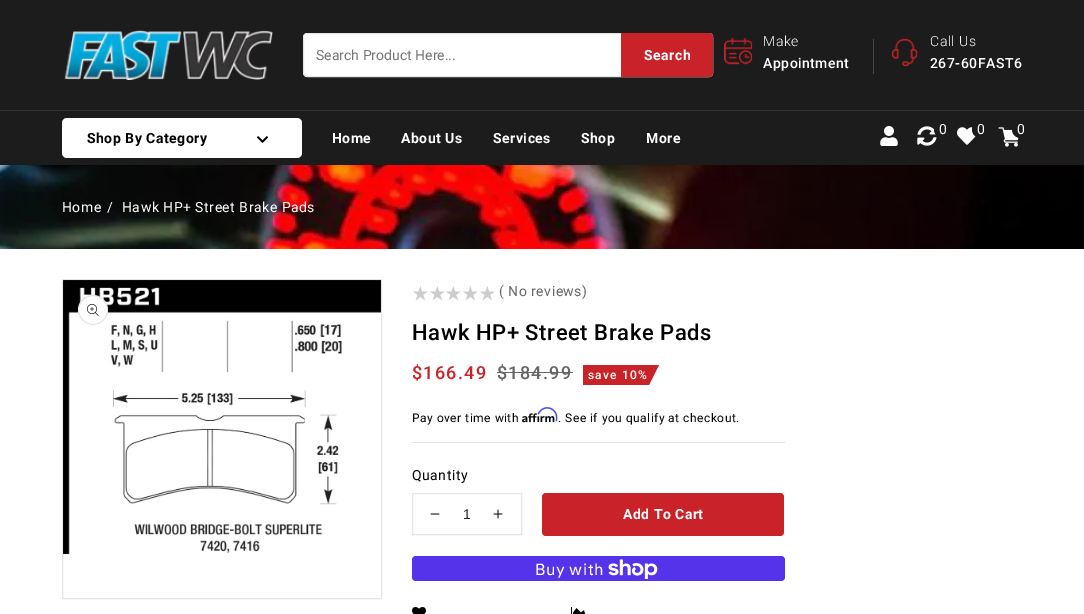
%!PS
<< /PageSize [1084 614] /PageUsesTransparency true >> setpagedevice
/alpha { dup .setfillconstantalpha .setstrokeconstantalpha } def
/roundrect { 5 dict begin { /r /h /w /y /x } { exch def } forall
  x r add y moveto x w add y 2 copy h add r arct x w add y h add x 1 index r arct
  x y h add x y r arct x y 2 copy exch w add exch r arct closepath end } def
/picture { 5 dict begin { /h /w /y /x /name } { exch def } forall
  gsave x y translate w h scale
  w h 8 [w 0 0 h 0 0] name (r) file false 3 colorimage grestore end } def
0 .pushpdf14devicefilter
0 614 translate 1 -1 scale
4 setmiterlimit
1 setgray
0 0 1084 614 rectfill
0.11 setgray
0 0 1084 110 rectfill
(img1.rgb) 64 30 209 50 picture
1 setgray
303.5 33.5 409 43 3.5 roundrect gsave fill grestore
0.898 setgray
stroke
/Roboto-Regular [14 0 0 -14 0 0] selectfont
0.459 setgray
316 60 moveto (Search Product Here...) show
0.788 0.133 0.161 setrgbcolor
newpath 621 33 moveto 709 33 lineto 711 33 713 35 713 37 curveto 713 73 lineto 713 75 711 77 709 77 curveto 621 77 lineto closepath fill
/Roboto-Bold [14 0 0 -14 0 0] selectfont
1 setgray
644 60 moveto 0.5 0 (Search) ashow
(img2.rgb) 724 38 29 27 picture
/Roboto-Light [14 0 0 -14 0 0] selectfont
763 46 moveto 0.5 0 (Make) ashow
/Roboto-Medium [14 0 0 -14 0 0] selectfont
763 68 moveto 0.5 0 (Appointment) ashow
0.286 0.282 0.286 setrgbcolor
873 39 1 35 rectfill
(img3.rgb) 891 38 27 29 picture
/Roboto-Light [14 0 0 -14 0 0] selectfont
1 setgray
930 46 moveto 0.5 0 (Call Us) ashow
/Roboto-Medium [14 0 0 -14 0 0] selectfont
930 68 moveto 0.5 0 (267-60FAST6) ashow
0.11 setgray
0 111 1084 54 rectfill
0.188 setgray
0 110 1084 1 rectfill
(img4.rgb) 880 126 18 20 picture
(img5.rgb) 917 126 20 20 picture
0.11 setgray
934 121 18 17 8.5 roundrect fill
/Roboto-Regular [14 0 0 -14 0 0] selectfont
1 setgray
939 134 moveto 0.5 0 (0) ashow
(img6.rgb) 957 127 19 18 picture
0.11 setgray
972 121 18 17 8.5 roundrect fill
1 setgray
977 134 moveto 0.5 0 (0) ashow
(img7.rgb) 998 127 21 20 picture
0.11 setgray
1012 121 18 17 8.5 roundrect fill
1 setgray
1017 134 moveto 0.5 0 (0) ashow
62 118 240 40 5 roundrect fill
/Roboto-Bold [14 0 0 -14 0 0] selectfont
0 setgray
87 143 moveto 0.5 0 (Shop By Category) ashow
(img8.rgb) 257 136 11 7 picture
1 setgray
332 143 moveto 0.5 0 (Home) ashow
401 143 moveto 0.5 0 (About Us) ashow
493 143 moveto 0.5 0 (Services) ashow
581 143 moveto 0.5 0 (Shop) ashow
646 143 moveto 0.5 0 (More) ashow
(img9.rgb) 0 165 1084 84 picture
/Roboto-Regular [14 0 0 -14 0 0] selectfont
62 212 moveto 0.5 0 (Home) ashow
107 212 moveto 0.5 0 (/) ashow
122 212 moveto 0.5 0 (Hawk HP+ Street Brake Pads) ashow
0.898 setgray
62.5 279.5 319 319 rectstroke
(img10.rgb) 63 280 318 274 picture
1 setgray
newpath 93 310 15 0 360 arc closepath fill
0.1 alpha
0 setgray
newpath 93 310 14.5 0 360 arc closepath stroke
1 alpha
(img11.rgb) 87 304 12 12 picture
/DejaVuSans-Bold [18 0 0 -18 0 0] selectfont
0.8 setgray
412 300 moveto 0.5 0 (★★★★★) ashow
/Roboto-Regular [14 0 0 -14 0 0] selectfont
0.4 setgray
499 296 moveto 0.5 0 (\( No reviews\)) ashow
/Roboto-Medium [22 0 0 -22 0 0] selectfont
0 setgray
412 340 moveto 0.6 0 (Hawk HP+ Street Brake Pads) ashow
0.898 setgray
412 442 373 1 rectfill
/Roboto-Medium [18 0 0 -18 0 0] selectfont
0.788 0.133 0.161 setrgbcolor
412 379 moveto 1.25 0 ($166.49) ashow
0.4 setgray
497 379 moveto 1.25 0 ($184.99) ashow
497 372 76 1 rectfill
0.788 0.133 0.161 setrgbcolor
583 365 66 20 rectfill
/Roboto-Medium [12 0 0 -12 0 0] selectfont
1 setgray
588 379 moveto 1.25 0 (save 10%) ashow
0.788 0.133 0.161 setrgbcolor
newpath 649 385 moveto 649 365 lineto 659 365 lineto closepath fill
/Roboto-Regular [12 0 0 -12 0 0] selectfont
0 setgray
412 422 moveto 0.5 0 (Pay over time with) ashow
(img13.rgb) 522 413 33 10 picture
(img12.rgb) 537 407 21 15 picture
558 422 moveto 0.5 0 (. See if you qualify at checkout.) ashow
/Roboto-Regular [14 0 0 -14 0 0] selectfont
412 480 moveto 0.5 0 (Quantity) ashow
0.898 setgray
412.5 493.5 109 41 rectstroke
(img14.rgb) 430 513 10 2 picture
/LiberationSans-Regular [14 0 0 -14 0 0] selectfont
0.149 setgray
463 519 moveto (1) show
(img15.rgb) 493 509 10 10 picture
0.788 0.133 0.161 setrgbcolor
542 493 242 43 4 roundrect fill
/Roboto-Bold [14 0 0 -14 0 0] selectfont
1 setgray
623 519 moveto 0.5 0 (Add To Cart) ashow
0.329 0.2 0.922 setrgbcolor
412 556 373 25 4 roundrect fill
/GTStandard-Regular [16 0 0 -16 0 0] selectfont
1 setgray
535 575 moveto 0.5 0 (Buy with) ashow
(img16.rgb) 608 559 50 20 picture
(img17.rgb) 412 607 14 7 picture
(img18.rgb) 571 607 15 7 picture
.poppdf14devicefilter showpage
